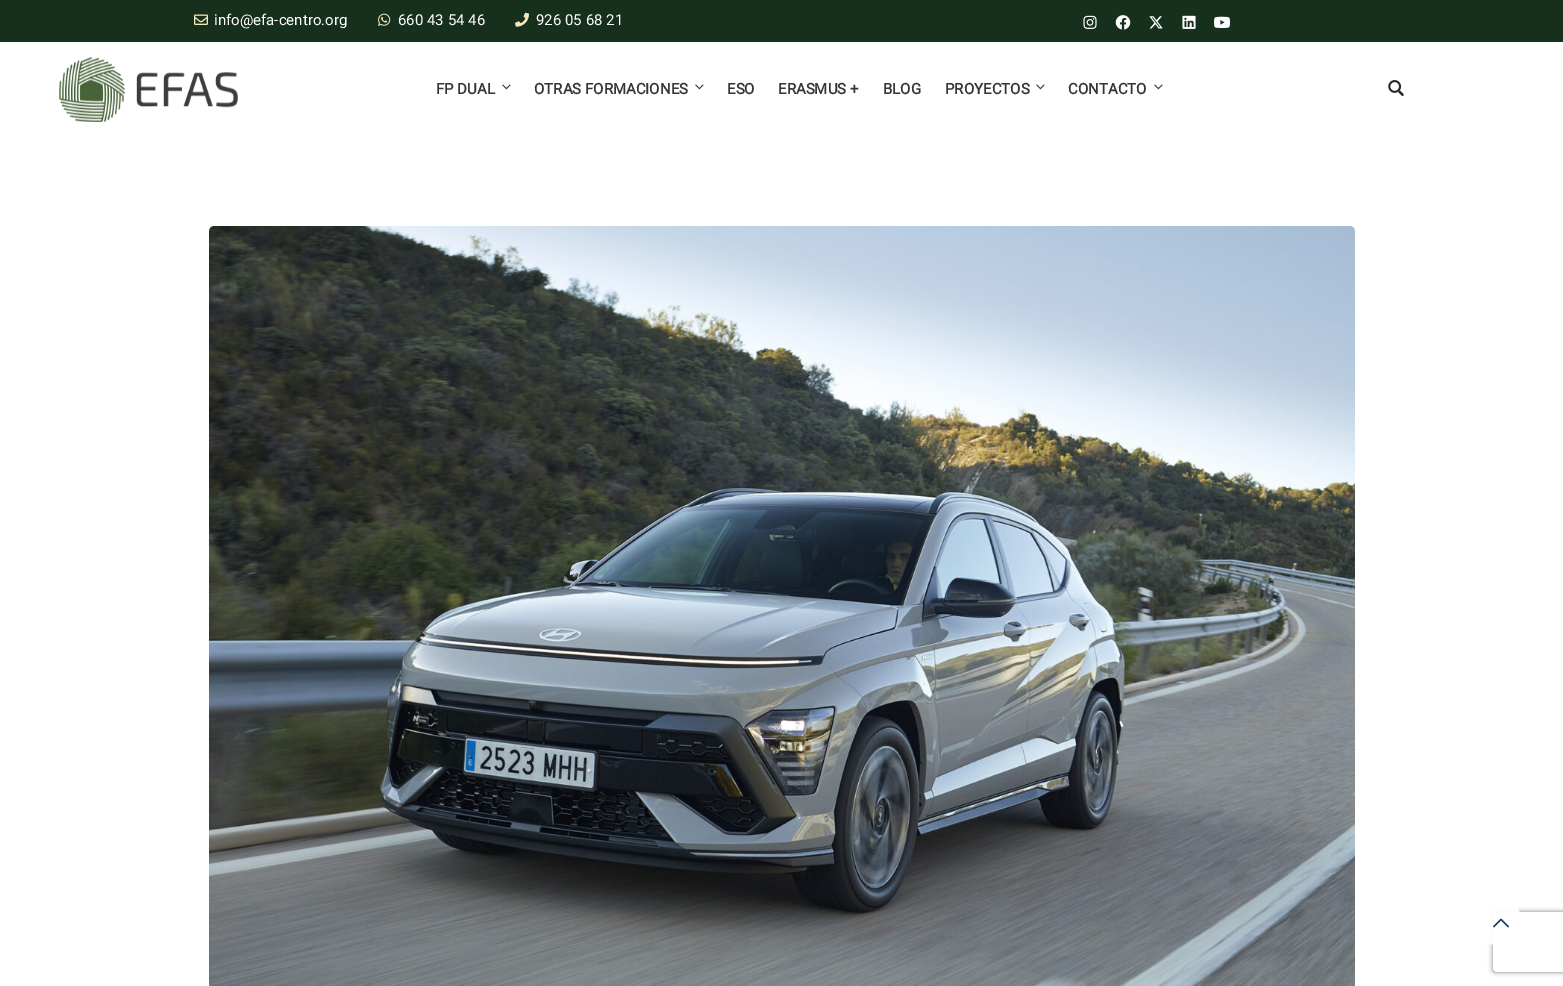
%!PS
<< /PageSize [1563 986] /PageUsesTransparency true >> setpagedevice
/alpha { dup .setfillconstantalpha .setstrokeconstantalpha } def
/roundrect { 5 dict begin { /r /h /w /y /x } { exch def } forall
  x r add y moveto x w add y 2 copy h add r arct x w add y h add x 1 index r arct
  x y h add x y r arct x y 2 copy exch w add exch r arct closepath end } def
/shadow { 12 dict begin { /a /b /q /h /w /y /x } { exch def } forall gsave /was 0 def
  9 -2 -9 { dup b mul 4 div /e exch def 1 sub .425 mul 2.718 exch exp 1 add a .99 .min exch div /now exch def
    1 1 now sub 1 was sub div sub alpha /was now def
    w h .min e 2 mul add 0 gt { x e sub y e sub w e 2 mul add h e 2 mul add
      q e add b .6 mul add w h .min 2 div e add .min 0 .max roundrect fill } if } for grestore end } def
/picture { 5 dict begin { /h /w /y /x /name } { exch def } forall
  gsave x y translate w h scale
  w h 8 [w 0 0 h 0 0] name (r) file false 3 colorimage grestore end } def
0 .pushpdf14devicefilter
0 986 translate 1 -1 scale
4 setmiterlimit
1 setgray
0 0 1563 986 rectfill
0.09 0.188 0.114 setrgbcolor
0 0 1563 42 rectfill
(img1.rgb) 194 14 14 11 picture
/Roboto-Regular [15 0 0 -15 0 0] selectfont
1 setgray
214 25 moveto (info@efa-centro.org) show
(img2.rgb) 378 13 13 13 picture
398 25 moveto (660 43 54 46) show
(img3.rgb) 515 12 14 15 picture
536 25 moveto (926 05 68 21) show
(img4.rgb) 1083 15 14 14 picture
(img5.rgb) 1115 15 16 15 picture
(img6.rgb) 1149 16 14 13 picture
(img7.rgb) 1182 15 14 14 picture
(img8.rgb) 1214 16 16 12 picture
(img9.rgb) 59 56 179 66 picture
/Roboto-Bold [15 0 0 -15 0 0] selectfont
0.204 0.216 0.227 setrgbcolor
436 94 moveto (FP DUAL) show
(img10.rgb) 502 84 9 6 picture
534 94 moveto (OTRAS FORMACIONES) show
(img10.rgb) 695 84 9 6 picture
727 94 moveto (ESO) show
778 94 moveto (ERASMUS +) show
883 94 moveto (BLOG) show
945 94 moveto (PROYECTOS) show
(img10.rgb) 1036 84 9 6 picture
1068 94 moveto (CONTACTO) show
(img10.rgb) 1154 84 9 6 picture
(img11.rgb) 1388 80 16 16 picture
(img12.rgb) 209 226 1146 760 picture
gsave
newpath 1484 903 moveto 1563 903 lineto 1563 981 lineto 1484 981 lineto closepath 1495 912 moveto 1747 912 lineto 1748 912 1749 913 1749 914 curveto 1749 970 lineto 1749 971 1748 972 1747 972 curveto 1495 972 lineto 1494 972 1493 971 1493 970 curveto 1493 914 lineto 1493 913 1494 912 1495 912 curveto closepath eoclip newpath
0.502 setgray
1493 912 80 60 2 2.5 1 shadow
grestore
0.95 alpha
1 setgray
newpath 1500.5 923.5 22.5 0 360 arc closepath fill
1 alpha
(img13.rgb) 1493 918 16 10 picture
.poppdf14devicefilter showpage
